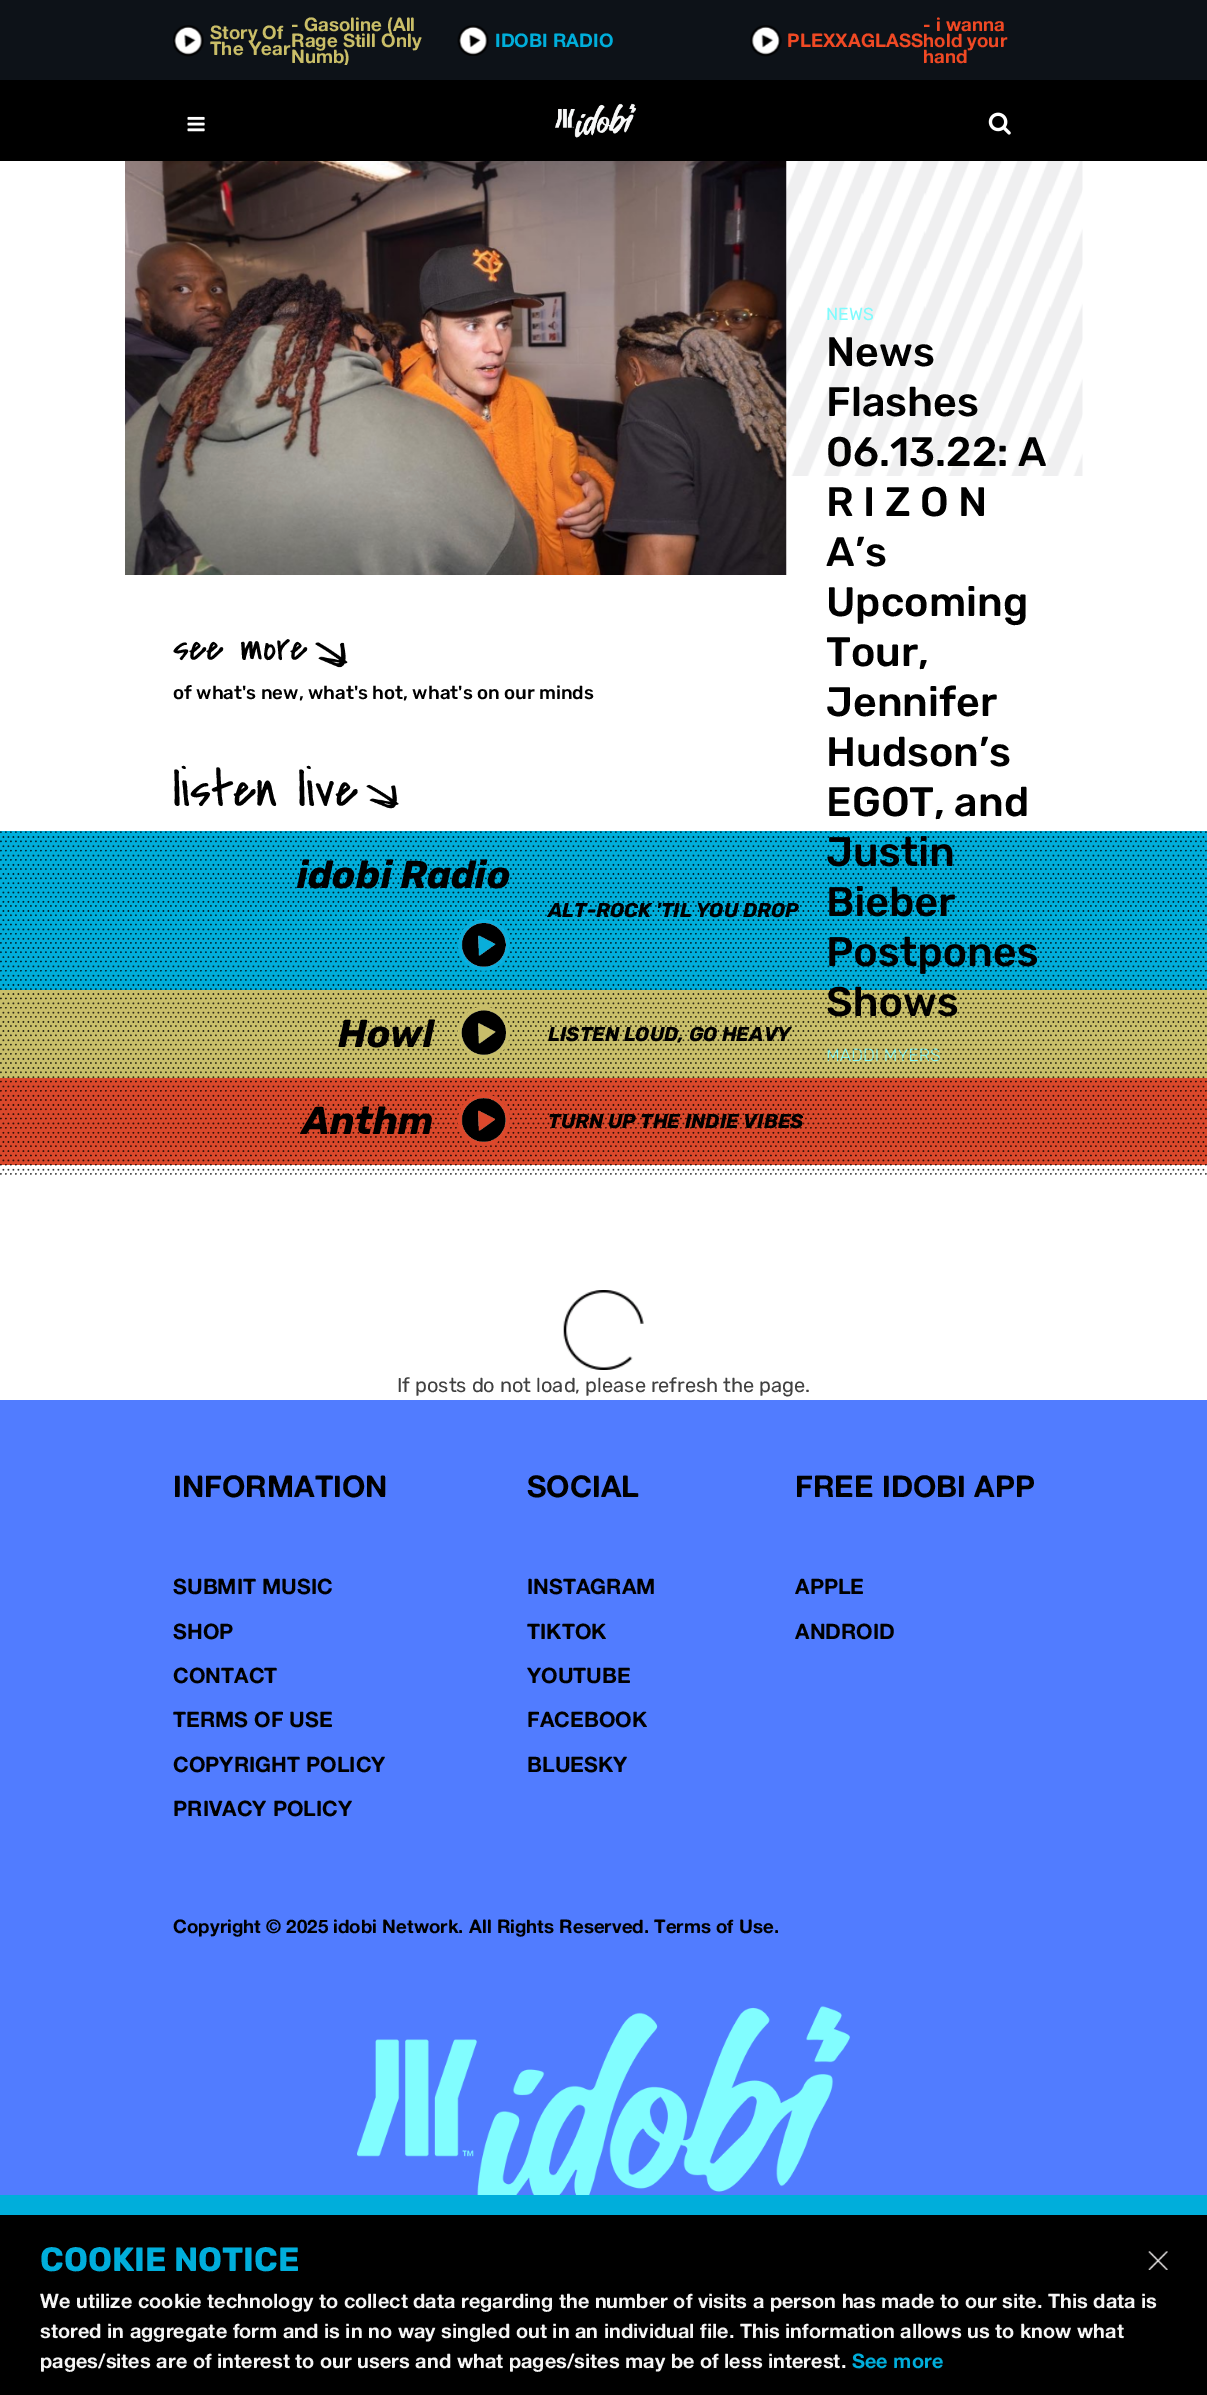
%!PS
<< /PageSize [1207 2395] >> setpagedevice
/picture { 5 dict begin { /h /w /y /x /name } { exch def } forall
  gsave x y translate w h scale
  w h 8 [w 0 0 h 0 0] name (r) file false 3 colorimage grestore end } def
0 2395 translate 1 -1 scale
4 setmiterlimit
1 setgray
0 0 1207 2395 rectfill
0 setgray
0 80 1207 81 rectfill
0.051 0.071 0.094 setrgbcolor
0 0 1207 80 rectfill
(img1.rgb) 173 25 31 32 picture
/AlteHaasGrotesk-Bold [18.75 0 0 -18.75 0 0] selectfont
0.792 0.745 0.408 setrgbcolor
210 39 moveto (Story Of) show
210 55 moveto (The Year) show
291 31 moveto (- Gasoline \(All) show
291 47 moveto (Rage Still Only) show
gsave
173 16 285 49 rectclip
291 63 moveto (Numb\)) show
grestore
(img2.rgb) 457 25 32 31 picture
0 0.682 0.859 setrgbcolor
495 47 moveto (IDOBI RADIO) show
(img3.rgb) 750 25 32 32 picture
0.941 0.286 0.141 setrgbcolor
923 31 moveto (- i wanna) show
787 47 moveto (PLEXXAGLASShold your) show
923 63 moveto (hand) show
(img4.rgb) 187 116 18 16 picture
(img5.rgb) 555 103 82 35 picture
(img6.rgb) 988 112 23 23 picture
/CoveredByYourGrace-Regular [40 0 0 -40 0 0] selectfont
0 setgray
173 660 moveto (see more) show
(img7.rgb) 315 642 33 26 picture
/Rubik-Medium [18.75 0 0 -18.75 0 0] selectfont
173 699 moveto (of what's new, what's hot, what's on our minds) show
(img9.rgb) 786 161 297 315 picture
(img8.rgb) 125 161 662 414 picture
/Rubik-Regular [17.5 0 0 -17.5 0 0] selectfont
0.506 0.984 0.992 setrgbcolor
826 320 moveto (NEWS) show
/Rubik-Medium [41.25 0 0 -41.25 0 0] selectfont
0 setgray
826 366 moveto (News) show
826 416 moveto (Flashes) show
826 466 moveto (06.13.22: A) show
826 516 moveto (R I Z O N) show
826 566 moveto (A’s) show
826 616 moveto (Upcoming) show
826 666 moveto (Tour,) show
826 716 moveto (Jennifer) show
826 766 moveto (Hudson’s) show
826 816 moveto (EGOT, and) show
0 0.682 0.859 setrgbcolor
0 831 1207 159 rectfill
0 setgray
826 866 moveto (Justin) show
826 916 moveto (Bieber) show
826 966 moveto (Postpones) show
0.788 0.749 0.416 setrgbcolor
0 990 1207 88 rectfill
0 setgray
826 1016 moveto (Shows) show
/Rubik-Light [17.5 0 0 -17.5 0 0] selectfont
0.506 0.984 0.992 setrgbcolor
826 1061 moveto (MADDI MYERS) show
/CoveredByYourGrace-Regular [52.5 0 0 -52.5 0 0] selectfont
0 setgray
173 806 moveto (listen live) show
(img10.rgb) 366 784 33 25 picture
0.855 0.282 0.169 setrgbcolor
0 1078 1207 87 rectfill
(img11.rgb) 0 831 1207 344 picture
/Rubik-BoldItalic [38.75 0 0 -38.75 0 0] selectfont
0 setgray
297 888 moveto (idobi Radio) show
(img12.rgb) 458 919 52 52 picture
/Rubik-BoldItalic [20 0 0 -20 0 0] selectfont
548 917 moveto (ALT-ROCK 'TIL YOU DROP) show
/Rubik-BoldItalic [38.75 0 0 -38.75 0 0] selectfont
338 1047 moveto (Howl) show
(img13.rgb) 457 1007 53 52 picture
/Rubik-BoldItalic [20 0 0 -20 0 0] selectfont
548 1041 moveto (LISTEN LOUD, GO HEAVY) show
/Rubik-BoldItalic [38.75 0 0 -38.75 0 0] selectfont
302 1134 moveto (Anthm) show
(img14.rgb) 458 1094 52 53 picture
/Rubik-BoldItalic [20 0 0 -20 0 0] selectfont
548 1128 moveto (TURN UP THE INDIE VIBES) show
(img15.rgb) 563 1290 81 80 picture
/Rubik-Regular [20 0 0 -20 0 0] selectfont
0.251 setgray
397 1392 moveto (If posts do not load, please refresh the page.) show
0.318 0.486 1 setrgbcolor
0 1400 1207 795 rectfill
/AlteHaasGrotesk-Bold [30 0 0 -30 0 0] selectfont
0 setgray
173 1497 moveto (INFORMATION) show
/AlteHaasGrotesk-Bold [21.25 0 0 -21.25 0 0] selectfont
173 1594 moveto (SUBMIT MUSIC) show
173 1639 moveto (SHOP) show
173 1683 moveto (CONTACT) show
173 1727 moveto (TERMS OF USE) show
173 1772 moveto (COPYRIGHT POLICY) show
173 1816 moveto (PRIVACY POLICY) show
/AlteHaasGrotesk-Bold [30 0 0 -30 0 0] selectfont
527 1497 moveto (SOCIAL) show
/AlteHaasGrotesk-Bold [21.25 0 0 -21.25 0 0] selectfont
527 1594 moveto (INSTAGRAM) show
527 1639 moveto (TIKTOK) show
527 1683 moveto (YOUTUBE) show
527 1727 moveto (FACEBOOK) show
527 1772 moveto (BLUESKY) show
/AlteHaasGrotesk-Bold [30 0 0 -30 0 0] selectfont
795 1497 moveto (FREE IDOBI APP) show
/AlteHaasGrotesk-Bold [21.25 0 0 -21.25 0 0] selectfont
795 1594 moveto (APPLE) show
795 1639 moveto (ANDROID) show
/AlteHaasGrotesk-Bold [18.75 0 0 -18.75 0 0] selectfont
173 1933 moveto (Copyright © 2025 idobi Network. All Rights Reserved. Terms of Use.) show
(img16.rgb) 357 2006 493 189 picture
0 2215 1207 180 rectfill
0 0.682 0.859 setrgbcolor
0 2195 1207 20 rectfill
/Rubik-Bold [33.75 0 0 -33.75 0 0] selectfont
40 2271 moveto (COOKIE NOTICE) show
(img17.rgb) 1148 2251 20 19 picture
/AlteHaasGrotesk-Bold [20 0 0 -20 0 0] selectfont
0.961 setgray
40 2308 moveto (We utilize cookie technology to collect data regarding the number of visits a person has made to our site. This data is) show
40 2338 moveto (stored in aggregate form and is in no way singled out in an individual file. This information allows us to know what) show
40 2368 moveto (pages/sites are of interest to our users and what pages/sites may be of less interest.) show
0 0.682 0.859 setrgbcolor
852 2368 moveto (See more) show
showpage
